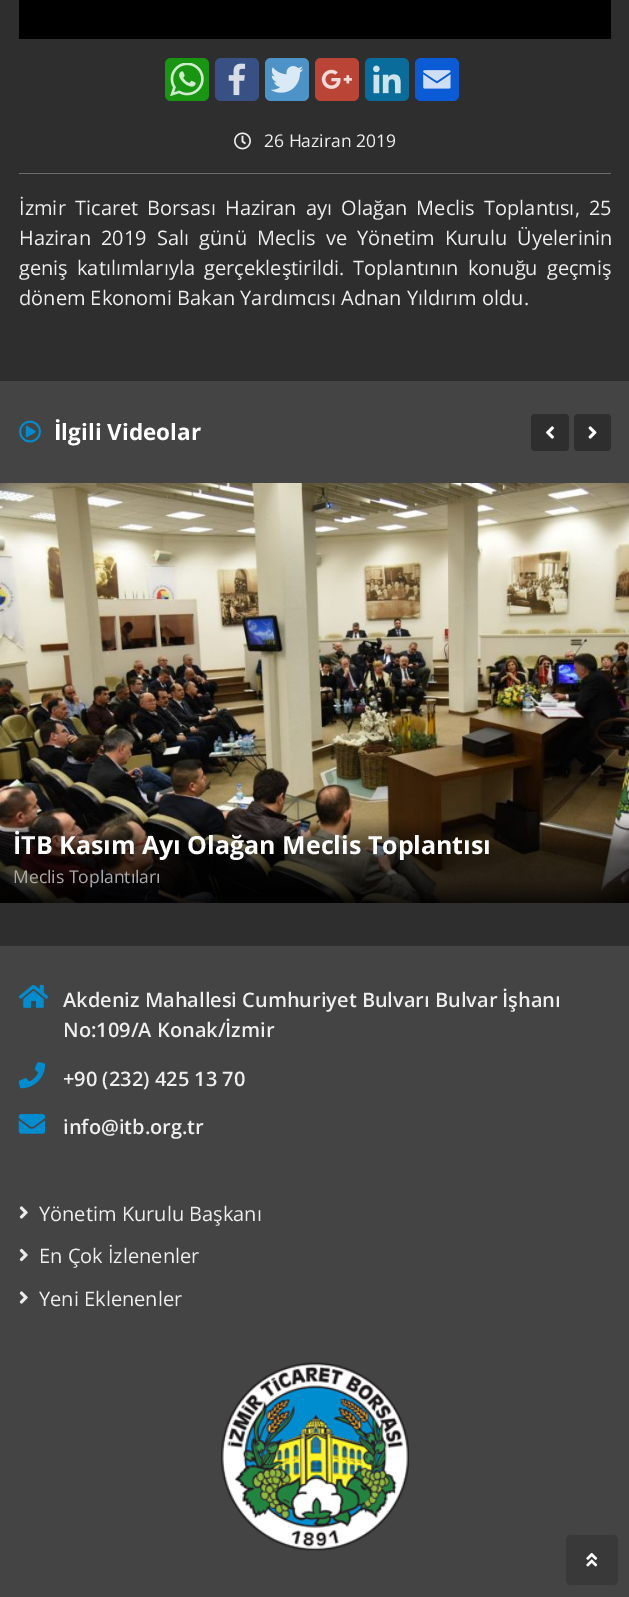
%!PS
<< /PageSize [629 1597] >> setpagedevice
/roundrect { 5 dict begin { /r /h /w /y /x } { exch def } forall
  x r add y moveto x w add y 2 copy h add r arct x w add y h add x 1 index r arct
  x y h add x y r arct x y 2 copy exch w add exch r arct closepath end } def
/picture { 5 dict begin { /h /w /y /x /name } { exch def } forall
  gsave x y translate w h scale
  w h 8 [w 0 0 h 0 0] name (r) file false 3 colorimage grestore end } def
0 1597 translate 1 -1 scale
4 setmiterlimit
0.18 setgray
0 0 629 1597 rectfill
0 setgray
19 0 592 39 rectfill
0.424 setgray
19 173 592 1 rectfill
0.094 0.584 0.067 setrgbcolor
165 58 44 43 6 roundrect fill
(img1.rgb) 170 63 34 33 picture
0.22 0.314 0.514 setrgbcolor
215 58 44 43 6 roundrect fill
(img2.rgb) 228 63 18 33 picture
0.302 0.576 0.784 setrgbcolor
265 58 44 43 6 roundrect fill
(img3.rgb) 270 66 34 27 picture
0.729 0.271 0.216 setrgbcolor
315 58 44 43 6 roundrect fill
(img4.rgb) 321 69 31 20 picture
0.035 0.424 0.604 setrgbcolor
365 58 44 43 6 roundrect fill
(img5.rgb) 373 65 28 29 picture
0.039 0.357 0.835 setrgbcolor
415 58 44 43 6 roundrect fill
(img6.rgb) 423 70 28 19 picture
(img7.rgb) 234 132 17 18 picture
/OpenSans-Regular [17.5 0 0 -17.5 0 0] selectfont
0.937 setgray
264 147 moveto (26 Haziran 2019) show
/OpenSans-Regular [20 0 0 -20 0 0] selectfont
19 215 moveto 4 0 32 (İzmir Ticaret Borsası Haziran ayı Olağan Meclis Toplantısı, 25) widthshow
19 245 moveto 5 0 32 (Haziran 2019 Salı günü Meclis ve Yönetim Kurulu Üyelerinin) widthshow
19 275 moveto 3.75 0 32 (geniş katılımlarıyla gerçekleştirildi. Toplantının konuğu geçmiş) widthshow
19 305 moveto (dönem Ekonomi Bakan Yardımcısı Adnan Yıldırım oldu.) show
0.267 setgray
0 381 629 102 rectfill
(img8.rgb) 19 420 22 23 picture
/OpenSans-Bold [22.5 0 0 -22.5 0 0] selectfont
1 setgray
54 440 moveto (İlgili Videolar) show
0.18 setgray
531 414 38 37 4 roundrect fill
(img9.rgb) 546 426 8 13 picture
574 414 37 37 4 roundrect fill
(img10.rgb) 588 426 9 13 picture
(img11.rgb) 0 483 629 420 picture
/OpenSans-Bold [25 0 0 -25 0 0] selectfont
1 setgray
13 854 moveto (İTB Kasım Ayı Olağan Meclis Toplantısı) show
/OpenSans-Regular [17.5 0 0 -17.5 0 0] selectfont
0.667 setgray
13 883 moveto (Meclis Toplantıları) show
0.267 setgray
0 946 629 651 rectfill
(img12.rgb) 18 984 31 24 picture
/OpenSans-SemiBold [20 0 0 -20 0 0] selectfont
0.937 setgray
63 1007 moveto (Akdeniz Mahallesi Cumhuriyet Bulvarı Bulvar İşhanı) show
63 1037 moveto (No:109/A Konak/İzmir) show
(img13.rgb) 18 1062 27 27 picture
63 1086 moveto (+90 \(232\) 425 13 70) show
(img14.rgb) 18 1114 27 20 picture
63 1134 moveto (info@itb.org.tr) show
(img15.rgb) 19 1206 9 13 picture
/OpenSans-Regular [20 0 0 -20 0 0] selectfont
39 1221 moveto (Yönetim Kurulu Başkanı) show
(img16.rgb) 19 1248 9 14 picture
39 1263 moveto (En Çok İzlenenler) show
(img15.rgb) 19 1291 9 13 picture
39 1306 moveto (Yeni Eklenenler) show
(img17.rgb) 221 1362 188 189 picture
0.224 setgray
566 1535 52 50 5 roundrect fill
(img18.rgb) 586 1552 12 15 picture
showpage
